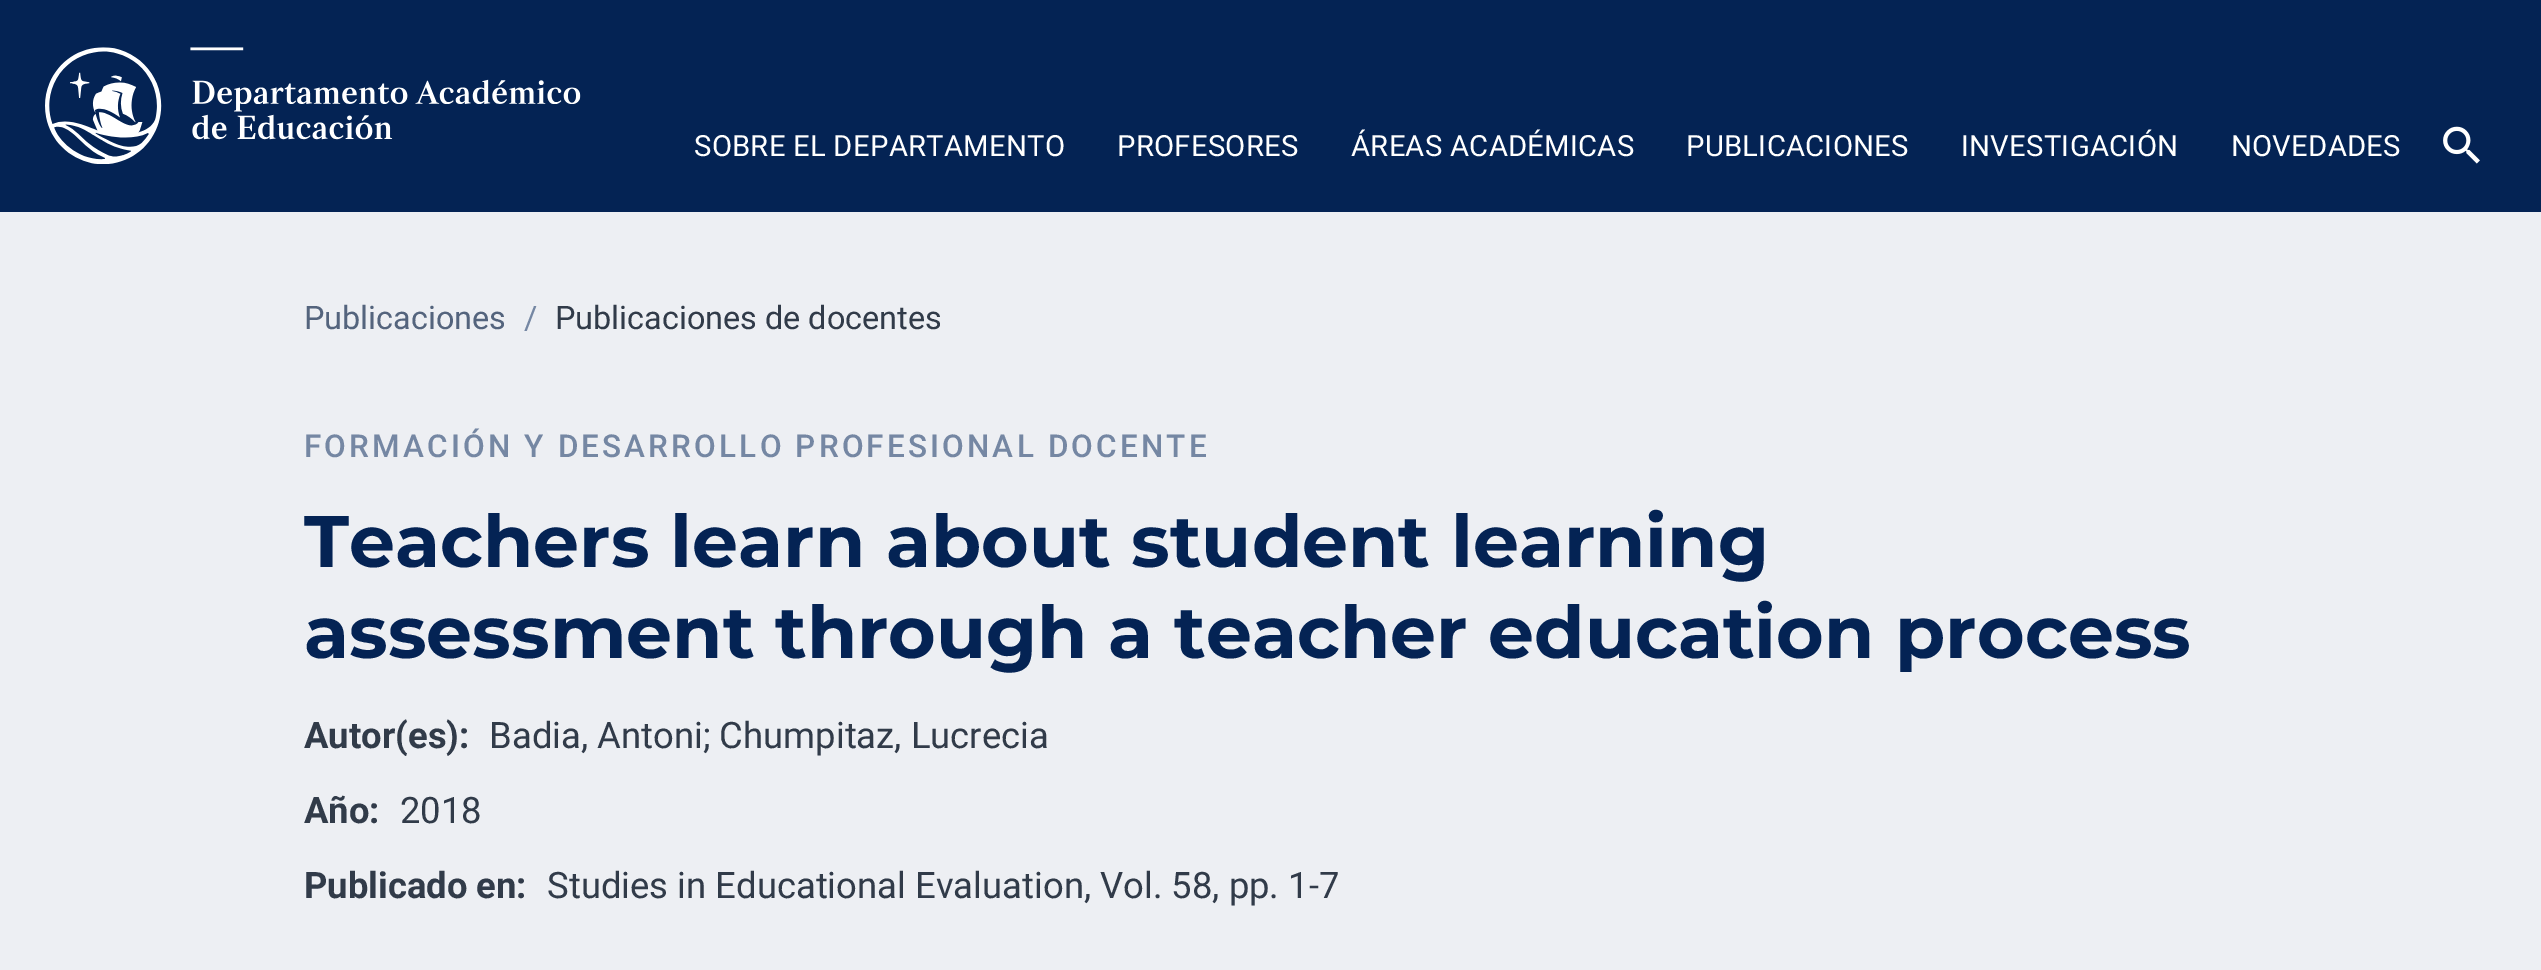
%!PS
<< /PageSize [2541 970] >> setpagedevice
/picture { 5 dict begin { /h /w /y /x /name } { exch def } forall
  gsave x y translate w h scale
  w h 8 [w 0 0 h 0 0] name (r) file false 3 colorimage grestore end } def
0 970 translate 1 -1 scale
4 setmiterlimit
0.929 0.937 0.953 setrgbcolor
0 0 2541 970 rectfill
0.016 0.137 0.329 setrgbcolor
0 0 2541 212 rectfill
(img1.rgb) 45 47 536 117 picture
/Roboto-Regular [29.25 0 0 -29.25 0 0] selectfont
1 setgray
694 156 moveto 0.25 0 (SOBRE EL DEPARTAMENTO) ashow
1117 156 moveto 0.25 0 (PROFESORES) ashow
1351 156 moveto 0.25 0 (ÁREAS ACADÉMICAS) ashow
1686 156 moveto 0.25 0 (PUBLICACIONES) ashow
1961 156 moveto 0.25 0 (INVESTIGACIÓN) ashow
2231 156 moveto 0.25 0 (NOVEDADES) ashow
(img2.rgb) 2443 126 37 38 picture
/Roboto-Regular [32.4 0 0 -32.4 0 0] selectfont
0.329 0.392 0.49 setrgbcolor
304 329 moveto (Publicaciones) show
0.459 0.529 0.639 setrgbcolor
524 329 moveto (/) show
0.192 0.231 0.286 setrgbcolor
555 329 moveto (Publicaciones de docentes) show
/Roboto-Medium [31.5 0 0 -31.5 0 0] selectfont
0.459 0.529 0.639 setrgbcolor
304 457 moveto 3.15 0 (FORMACIÓN Y DESARROLLO PROFESIONAL DOCENTE) ashow
/Montserrat-Bold [72.9 0 0 -72.9 0 0] selectfont
0.016 0.137 0.329 setrgbcolor
304 567 moveto (Teachers learn about student learning) show
304 658 moveto (assessment through a teacher education process) show
/Roboto-Bold [36.45 0 0 -36.45 0 0] selectfont
0.192 0.231 0.286 setrgbcolor
304 748 moveto (Autor\(es\):) show
/Roboto-Regular [36.45 0 0 -36.45 0 0] selectfont
489 748 moveto (Badia, Antoni; Chumpitaz, Lucrecia) show
/Roboto-Bold [36.45 0 0 -36.45 0 0] selectfont
304 823 moveto (Año:) show
/Roboto-Regular [36.45 0 0 -36.45 0 0] selectfont
400 823 moveto (2018) show
/Roboto-Bold [36.45 0 0 -36.45 0 0] selectfont
304 898 moveto (Publicado en:) show
/Roboto-Regular [36.45 0 0 -36.45 0 0] selectfont
547 898 moveto (Studies in Educational Evaluation, Vol. 58, pp. 1-7) show
showpage
